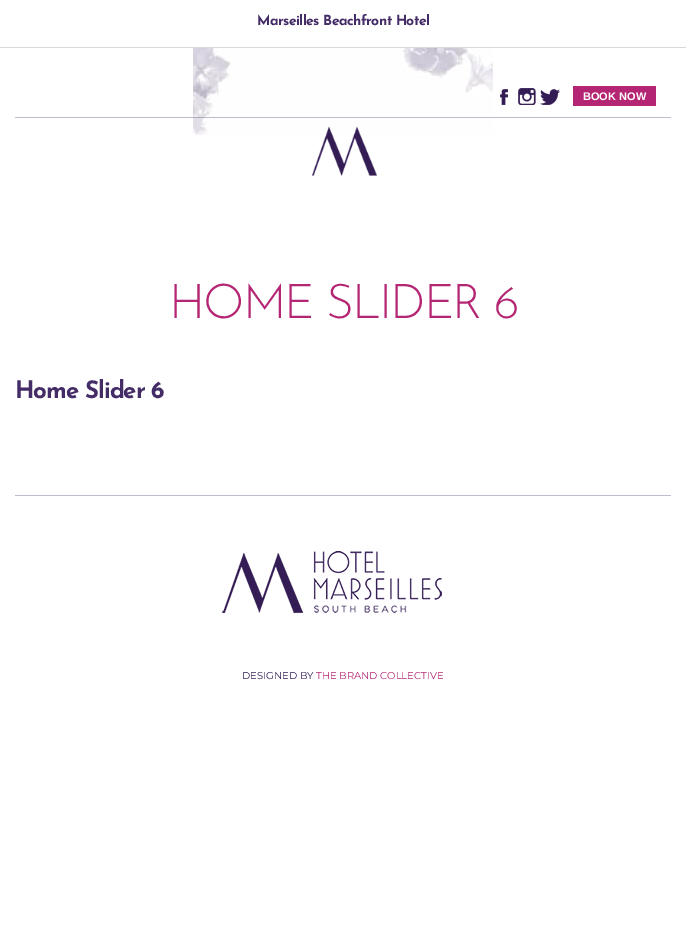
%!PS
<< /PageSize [686 948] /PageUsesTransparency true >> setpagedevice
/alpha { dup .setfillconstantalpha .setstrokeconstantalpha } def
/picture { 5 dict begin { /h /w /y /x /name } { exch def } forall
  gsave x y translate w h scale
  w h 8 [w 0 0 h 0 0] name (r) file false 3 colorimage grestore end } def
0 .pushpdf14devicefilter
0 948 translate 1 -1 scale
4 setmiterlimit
1 setgray
0 0 686 948 rectfill
0.851 setgray
0 47 686 1 rectfill
/JosefinSans-Bold [14 0 0 -14 0 0] selectfont
0.267 0.173 0.404 setrgbcolor
257 25 moveto -0.55 0 (Marseilles Beachfront Hotel) ashow
(img1.rgb) 193 48 300 87 picture
(img2.rgb) 500 89 8 16 picture
(img3.rgb) 518 88 18 17 picture
(img4.rgb) 540 89 20 16 picture
0.706 0.149 0.451 setrgbcolor
573 86 83 20 rectfill
/LiberationSans-Bold [11 0 0 -11 0 0] selectfont
1 setgray
583 100 moveto (BOOK NOW) show
0.3 alpha
0.204 0.11 0.333 setrgbcolor
15 117 656 1 rectfill
1 alpha
(img5.rgb) 312 126 65 50 picture
/JosefinSans-Light [48 0 0 -48 0 0] selectfont
0.706 0.149 0.451 setrgbcolor
169 318 moveto -1.9 0 (HOME SLIDER 6) ashow
/JosefinSans-Bold [24 0 0 -24 0 0] selectfont
0.267 0.173 0.404 setrgbcolor
15 398 moveto -1 0 (Home Slider 6) ashow
0.761 0.733 0.8 setrgbcolor
15 495 656 1 rectfill
(img6.rgb) 222 551 220 62 picture
/Montserrat-Thin [10 0 0 -10 0 0] selectfont
0.204 0.11 0.333 setrgbcolor
242 679 moveto (DESIGNED BY) show
0.706 0.149 0.451 setrgbcolor
316 679 moveto (THE BRAND COLLECTIVE) show
.poppdf14devicefilter showpage
